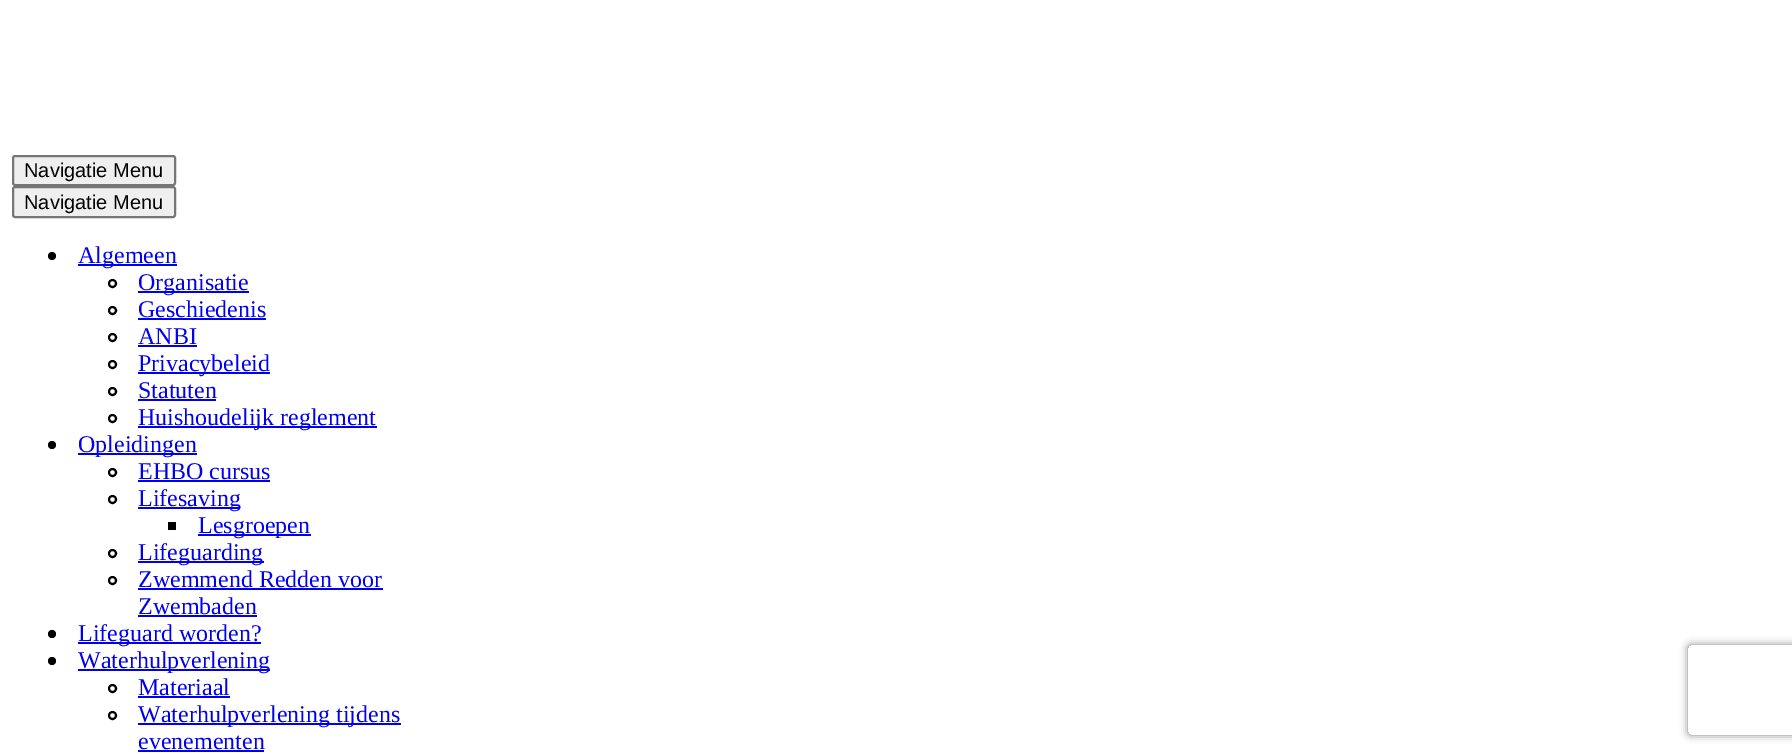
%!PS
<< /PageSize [1792 756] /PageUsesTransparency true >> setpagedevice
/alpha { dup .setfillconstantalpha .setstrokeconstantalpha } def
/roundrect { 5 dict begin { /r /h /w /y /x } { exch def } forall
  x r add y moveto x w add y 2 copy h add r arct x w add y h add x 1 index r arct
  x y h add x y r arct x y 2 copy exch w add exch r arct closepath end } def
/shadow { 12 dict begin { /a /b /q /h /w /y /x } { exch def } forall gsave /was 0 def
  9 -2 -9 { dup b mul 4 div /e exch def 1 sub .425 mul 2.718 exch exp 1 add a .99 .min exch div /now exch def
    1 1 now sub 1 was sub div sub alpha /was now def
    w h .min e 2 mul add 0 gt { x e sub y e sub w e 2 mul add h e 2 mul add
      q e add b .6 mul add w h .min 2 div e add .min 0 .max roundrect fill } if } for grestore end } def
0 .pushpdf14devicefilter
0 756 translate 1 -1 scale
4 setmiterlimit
1 setgray
0 0 1792 756 rectfill
0.937 setgray
13 156 162 29 2 roundrect gsave fill grestore
0.463 setgray
2 setlinewidth
stroke
/LiberationSans-Regular [20 0 0 -20 0 0] selectfont
0 setgray
24 177 moveto (Navigatie Menu) show
0.937 setgray
13 187 162 30 2 roundrect gsave fill grestore
0.463 setgray
stroke
0 setgray
24 209 moveto (Navigatie Menu) show
newpath 52 256 4 0 360 arc closepath fill
0 0 0.933 setrgbcolor
78 264 99 2 rectfill
/LiberationSerif-Regular [24 0 0 -24 0 0] selectfont
78 263 moveto (Algemeen) show
0 setgray
newpath 112.5 283.5 3.5 0 360 arc closepath stroke
0 0 0.933 setrgbcolor
138 291 111 2 rectfill
138 290 moveto (Organisatie) show
0 setgray
newpath 112.5 310.5 3.5 0 360 arc closepath stroke
0 0 0.933 setrgbcolor
138 317 moveto (Geschiedenis) show
138 318 128 2 rectfill
0 setgray
newpath 112.5 337.5 3.5 0 360 arc closepath stroke
0 0 0.933 setrgbcolor
138 344 moveto (ANBI) show
138 345 59 2 rectfill
0 setgray
newpath 112.5 364.5 3.5 0 360 arc closepath stroke
0 0 0.933 setrgbcolor
138 372 132 2 rectfill
138 371 moveto (Privacybeleid) show
0 setgray
newpath 112.5 391.5 3.5 0 360 arc closepath stroke
0 0 0.933 setrgbcolor
138 398 moveto (Statuten) show
138 399 78 2 rectfill
0 setgray
newpath 112.5 418.5 3.5 0 360 arc closepath stroke
0 0 0.933 setrgbcolor
138 426 239 2 rectfill
138 425 moveto (Huishoudelijk reglement) show
0 setgray
newpath 52 445 4 0 360 arc closepath fill
0 0 0.933 setrgbcolor
78 453 119 2 rectfill
78 452 moveto (Opleidingen) show
0 setgray
newpath 112.5 472.5 3.5 0 360 arc closepath stroke
0 0 0.933 setrgbcolor
138 479 moveto (EHBO cursus) show
138 480 132 2 rectfill
0 setgray
newpath 112.5 499.5 3.5 0 360 arc closepath stroke
0 0 0.933 setrgbcolor
138 507 102 2 rectfill
138 506 moveto (Lifesaving) show
0 setgray
168 522 8 8 rectfill
0 0 0.933 setrgbcolor
198 534 113 2 rectfill
198 533 moveto (Lesgroepen) show
0 setgray
newpath 112.5 553.5 3.5 0 360 arc closepath stroke
0 0 0.933 setrgbcolor
138 561 126 2 rectfill
138 560 moveto (Lifeguarding) show
0 setgray
newpath 112.5 580.5 3.5 0 360 arc closepath stroke
0 0 0.933 setrgbcolor
138 587 moveto (Zwemmend Redden voor) show
138 588 245 2 rectfill
138 614 moveto (Zwembaden) show
138 615 119 2 rectfill
0 setgray
newpath 52 634 4 0 360 arc closepath fill
0 0 0.933 setrgbcolor
78 642 183 2 rectfill
78 641 moveto (Lifeguard worden?) show
0 setgray
newpath 52 661 4 0 360 arc closepath fill
0 0 0.933 setrgbcolor
78 669 192 2 rectfill
78 668 moveto (Waterhulpverlening) show
0 setgray
newpath 112.5 688.5 3.5 0 360 arc closepath stroke
0 0 0.933 setrgbcolor
138 695 moveto (Materiaal) show
138 696 92 2 rectfill
0 setgray
newpath 112.5 715.5 3.5 0 360 arc closepath stroke
0 0 0.933 setrgbcolor
138 723 263 2 rectfill
138 722 moveto (Waterhulpverlening tijdens) show
138 749 moveto (evenementen) show
138 750 126 2 rectfill
gsave
newpath 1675 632 moveto 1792 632 lineto 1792 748 lineto 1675 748 lineto closepath 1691 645 moveto 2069 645 lineto 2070.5 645 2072 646.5 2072 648 curveto 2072 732 lineto 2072 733.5 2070.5 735 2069 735 curveto 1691 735 lineto 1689.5 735 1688 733.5 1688 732 curveto 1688 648 lineto 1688 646.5 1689.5 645 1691 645 curveto closepath eoclip newpath
0.502 setgray
1688 645 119 90 3 4 1 shadow
grestore
.poppdf14devicefilter showpage
